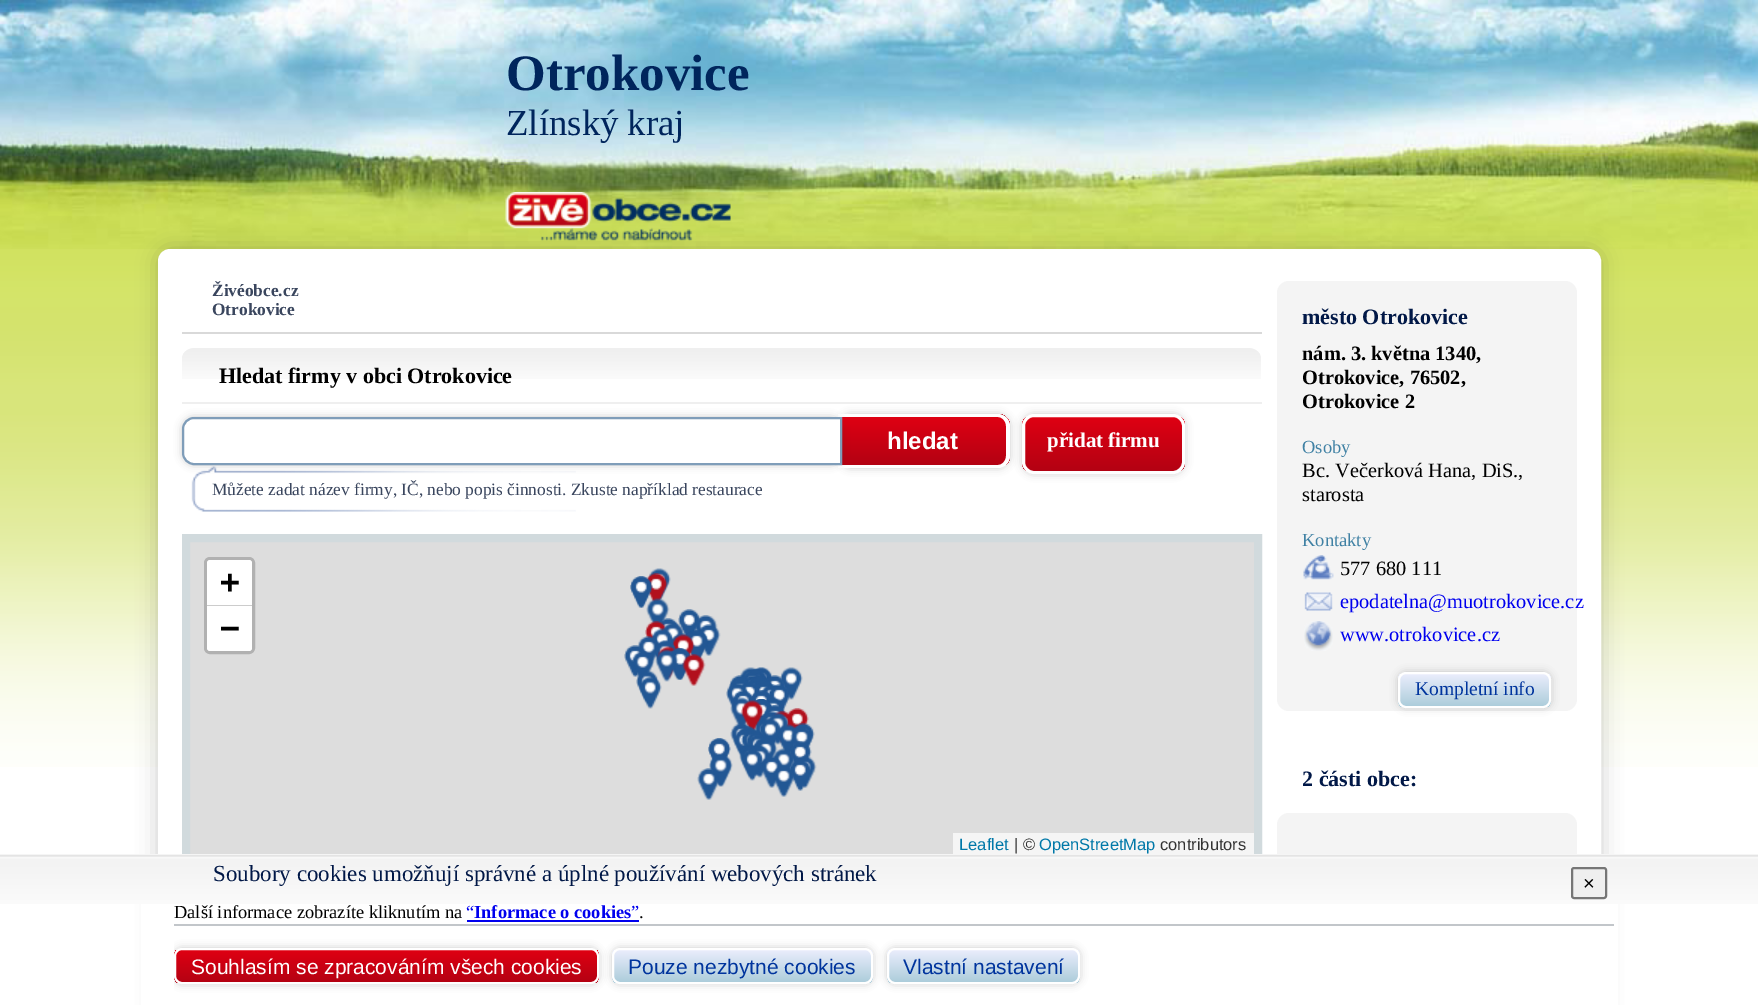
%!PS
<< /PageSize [1758 1005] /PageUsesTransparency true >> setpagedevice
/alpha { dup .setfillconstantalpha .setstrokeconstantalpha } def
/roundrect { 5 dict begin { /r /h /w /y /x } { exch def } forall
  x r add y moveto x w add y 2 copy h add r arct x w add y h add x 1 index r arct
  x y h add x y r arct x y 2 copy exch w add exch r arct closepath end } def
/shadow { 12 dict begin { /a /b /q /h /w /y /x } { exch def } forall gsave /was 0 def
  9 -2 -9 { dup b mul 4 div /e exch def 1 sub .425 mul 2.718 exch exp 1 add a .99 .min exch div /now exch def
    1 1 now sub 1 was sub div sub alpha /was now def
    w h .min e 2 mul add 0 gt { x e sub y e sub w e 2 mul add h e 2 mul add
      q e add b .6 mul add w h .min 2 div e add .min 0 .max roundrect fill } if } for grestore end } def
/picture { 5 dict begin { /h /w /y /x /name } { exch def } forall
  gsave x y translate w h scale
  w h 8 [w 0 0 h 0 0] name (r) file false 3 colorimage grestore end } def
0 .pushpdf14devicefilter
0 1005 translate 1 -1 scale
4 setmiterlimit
1 setgray
0 0 1758 1005 rectfill
(img1.rgb) 0 249 1758 518 picture
(img2.rgb) 0 0 1758 249 picture
/LiberationSerif-Bold [51 0 0 -51 0 0] selectfont
0 0.145 0.361 setrgbcolor
506 90 moveto (Otrokovice) show
/LiberationSerif-Regular [36.75 0 0 -36.75 0 0] selectfont
506 135 moveto (Zlínský kraj) show
(img3.rgb) 505 192 226 49 picture
0.196 setgray
158 249 1443 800 12 10.5 0.25 shadow
1 setgray
159 250 1441 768 11 roundrect gsave fill grestore
2 setlinewidth
stroke
0.851 setgray
182 332 1080 2 rectfill
/LiberationSerif-Bold [17.35 0 0 -17.35 0 0] selectfont
0.227 0.275 0.369 setrgbcolor
212 296 moveto (Živéobce.cz) show
212 315 moveto (Otrokovice) show
(img4.rgb) 182 348 1079 31 picture
0.196 setgray
1022 414 163 60 12 4 0.25 shadow
gsave
1022 414 163 60 12 roundrect clip newpath
gsave newpath 1022 417 moveto 1185 417 lineto 1185 471 lineto 1022 471 lineto closepath clip newpath
<< /ShadingType 2 /ColorSpace /DeviceRGB /Coords [1103 417 1103 471] /Extend [true true] /Function << /FunctionType 2 /Domain [0 1] /C0 [0.875 0 0.071] /C1 [0.702 0.008 0.075] /N 1 >> >> shfill grestore
grestore
1 setgray
3 setlinewidth
1023.5 415.5 160 57 10.5 roundrect stroke
0.196 setgray
839 414 171 54 12 4 0.25 shadow
0.937 setgray
182 402 1080 2 rectfill
/LiberationSerif-Bold [22 0 0 -22 0 0] selectfont
0 setgray
219 383 moveto (Hledat firmy v obci Otrokovice) show
gsave
newpath 839 414 moveto 998 414 lineto 1004.5 414 1010 419.5 1010 426 curveto 1010 456 lineto 1010 462.5 1004.5 468 998 468 curveto 839 468 lineto closepath clip newpath
gsave newpath 842 417 moveto 1010 417 lineto 1010 465 lineto 842 465 lineto closepath clip newpath
<< /ShadingType 2 /ColorSpace /DeviceRGB /Coords [923 417 923 465] /Extend [true true] /Function << /FunctionType 2 /Domain [0 1] /C0 [0.875 0 0.071] /C1 [0.702 0.008 0.075] /N 1 >> >> shfill grestore
gsave newpath 998 414 moveto 1010 414 lineto 1010 417 lineto 998 417 lineto closepath clip newpath
<< /ShadingType 2 /ColorSpace /DeviceRGB /Coords [923 369 923 417] /Extend [true true] /Function << /FunctionType 2 /Domain [0 1] /C0 [0.875 0 0.071] /C1 [0.702 0.008 0.075] /N 1 >> >> shfill grestore
grestore
1 setgray
newpath 838 414 moveto 998 414 lineto 1004 414 1010 419 1010 426 curveto 1010 456 lineto 1010 463 1004 468 998 468 curveto 838 468 lineto closepath 838 417 moveto 998 417 lineto 1002 417 1006 421 1006 426 curveto 1006 456 lineto 1006 461 1002 465 998 465 curveto 838 465 lineto closepath eofill
(img5.rgb) 191 466 385 46 picture
0.196 setgray
182 417 660 48 12 4 0.25 shadow
1 setgray
newpath 194 418 moveto 841 418 lineto 841 464 lineto 194 464 lineto 188 464 183 459 183 453 curveto 183 429 lineto 183 423 188 418 194 418 curveto closepath gsave fill grestore
0.498 0.616 0.725 setrgbcolor
2 setlinewidth
stroke
/LiberationSans-Bold [24 0 0 -24 0 0] selectfont
1 setgray
887 449 moveto (hledat) show
/LiberationSerif-Regular [17.35 0 0 -17.35 0 0] selectfont
0.227 0.275 0.369 setrgbcolor
212 495 moveto (Můžete zadat název firmy, IČ, nebo popis činnosti. Zkuste například restaurace) show
/LiberationSerif-Bold [21 0 0 -21 0 0] selectfont
1 setgray
1047 447 moveto (přidat firmu) show
0.867 setgray
190 542 1064 312 rectfill
0.82 0.855 0.867 setrgbcolor
8 setlinewidth
186 538 1072 322 rectstroke
(img6.rgb) 648 568 23 33 picture
(img8.rgb) 646 573 22 30 picture
(img7.rgb) 630 576 23 32 picture
(img9.rgb) 630 576 23 32 picture
(img10.rgb) 646 598 24 27 picture
(img11.rgb) 678 609 23 29 picture
(img12.rgb) 695 615 23 32 picture
(img14.rgb) 658 618 22 27 picture
(img13.rgb) 645 621 22 32 picture
(img15.rgb) 662 622 23 30 picture
(img16.rgb) 698 624 23 32 picture
(img17.rgb) 651 628 23 30 picture
(img18.rgb) 686 630 23 30 picture
(img19.rgb) 686 630 23 30 picture
(img21.rgb) 686 630 23 30 picture
(img20.rgb) 672 633 22 24 picture
(img22.rgb) 637 636 23 32 picture
(img24.rgb) 672 634 23 24 picture
(img23.rgb) 655 640 22 33 picture
(img25.rgb) 624 645 22 32 picture
(img26.rgb) 655 640 22 33 picture
(img27.rgb) 657 646 20 33 picture
(img28.rgb) 669 648 22 32 picture
(img29.rgb) 670 648 21 32 picture
(img30.rgb) 631 651 24 28 picture
(img32.rgb) 670 648 21 32 picture
(img31.rgb) 655 649 24 33 picture
(img33.rgb) 682 654 24 32 picture
(img36.rgb) 753 667 20 12 picture
(img34.rgb) 739 667 20 12 picture
(img35.rgb) 751 667 22 16 picture
(img6.rgb) 780 667 23 33 picture
(img39.rgb) 746 669 21 13 picture
(img37.rgb) 745 669 21 11 picture
(img38.rgb) 636 670 23 33 picture
(img41.rgb) 742 673 19 7 picture
(img43.rgb) 743 675 16 8 picture
(img45.rgb) 749 676 20 7 picture
(img46.rgb) 749 676 20 7 picture
(img44.rgb) 765 675 21 15 picture
(img48.rgb) 749 677 23 9 picture
(img40.rgb) 729 675 21 14 picture
(img42.rgb) 639 676 23 33 picture
(img50.rgb) 758 680 15 6 picture
(img49.rgb) 745 680 18 6 picture
(img47.rgb) 729 680 21 11 picture
(img53.rgb) 752 681 22 6 picture
(img54.rgb) 752 683 22 5 picture
(img55.rgb) 754 683 21 9 picture
(img52.rgb) 740 683 21 17 picture
(img51.rgb) 726 683 23 32 picture
(img56.rgb) 761 684 18 16 picture
(img59.rgb) 768 684 22 29 picture
(img60.rgb) 752 690 20 10 picture
(img58.rgb) 751 690 19 14 picture
(img57.rgb) 733 690 20 32 picture
(img61.rgb) 730 697 22 30 picture
(img63.rgb) 764 697 21 16 picture
(img62.rgb) 752 699 20 28 picture
(img64.rgb) 752 699 20 28 picture
(img65.rgb) 752 699 20 28 picture
(img66.rgb) 752 699 20 28 picture
(img67.rgb) 752 699 20 28 picture
(img68.rgb) 752 699 20 28 picture
(img69.rgb) 752 699 20 28 picture
(img70.rgb) 741 700 23 31 picture
(img71.rgb) 763 705 24 14 picture
(img72.rgb) 763 705 24 14 picture
(img73.rgb) 787 708 22 23 picture
(img74.rgb) 762 711 17 32 picture
(img75.rgb) 772 711 22 32 picture
(img77.rgb) 767 712 23 33 picture
(img76.rgb) 754 718 23 21 picture
(img78.rgb) 730 723 23 32 picture
(img79.rgb) 760 718 21 30 picture
(img81.rgb) 793 723 22 27 picture
(img80.rgb) 779 724 20 31 picture
(img82.rgb) 736 726 23 17 picture
(img83.rgb) 790 727 24 23 picture
(img84.rgb) 733 729 19 32 picture
(img85.rgb) 741 729 21 21 picture
(img86.rgb) 746 730 20 20 picture
(img87.rgb) 708 738 23 25 picture
(img88.rgb) 750 735 19 13 picture
(img89.rgb) 708 738 23 25 picture
(img90.rgb) 753 738 23 31 picture
(img91.rgb) 755 741 23 29 picture
(img92.rgb) 789 741 23 24 picture
(img93.rgb) 746 744 22 32 picture
(img94.rgb) 739 745 20 33 picture
(img95.rgb) 749 745 21 33 picture
(img96.rgb) 772 748 23 24 picture
(img97.rgb) 709 754 24 33 picture
(img98.rgb) 741 750 23 31 picture
(img99.rgb) 709 754 24 33 picture
(img100.rgb) 762 756 21 32 picture
(img101.rgb) 793 756 24 32 picture
(img102.rgb) 697 768 22 32 picture
(img104.rgb) 789 761 22 30 picture
(img103.rgb) 773 765 21 32 picture
0.694 setgray
3 setlinewidth
205.5 558.5 48 94 4.5 roundrect stroke
1 setgray
newpath 210 560 moveto 249 560 lineto 250.5 560 252 561.5 252 563 curveto 252 606 lineto 207 606 lineto 207 563 lineto 207 561.5 208.5 560 210 560 curveto closepath fill
0.8 setgray
207 605 45 1 rectfill
/DejaVuSansMono-Bold [33 0 0 -33 0 0] selectfont
0 setgray
220 593 moveto (+) show
1 setgray
newpath 207 606 moveto 252 606 lineto 252 648 lineto 252 649.5 250.5 651 249 651 curveto 210 651 lineto 208.5 651 207 649.5 207 648 curveto closepath fill
0 setgray
220 639 moveto (−) show
0.7 alpha
1 setgray
953 833 301 21 rectfill
/LiberationSans-Regular [16.5 0 0 -16.5 0 0] selectfont
1 alpha
0 0.471 0.659 setrgbcolor
959 850 moveto (Leaflet) show
0.2 setgray
1014 850 moveto (| ©) show
0 0.471 0.659 setrgbcolor
1039 850 moveto (OpenStreetMap) show
0.2 setgray
1160 850 moveto (contributors) show
0.957 setgray
1277 281 300 430 12 roundrect fill
/LiberationSerif-Bold [22 0 0 -22 0 0] selectfont
0.004 0.094 0.278 setrgbcolor
1302 324 moveto (město Otrokovice) show
/LiberationSerif-Bold [20.4 0 0 -20.4 0 0] selectfont
0 setgray
1302 360 moveto (nám. 3. května 1340,) show
1302 384 moveto (Otrokovice, 76502,) show
1302 408 moveto (Otrokovice 2) show
/LiberationSerif-Regular [18.5 0 0 -18.5 0 0] selectfont
0.251 0.506 0.643 setrgbcolor
1302 453 moveto (Osoby) show
/LiberationSerif-Regular [20.4 0 0 -20.4 0 0] selectfont
0 setgray
1302 477 moveto (Bc. Večerková Hana, DiS.,) show
1302 501 moveto (starosta) show
/LiberationSerif-Regular [18.5 0 0 -18.5 0 0] selectfont
0.251 0.506 0.643 setrgbcolor
1302 546 moveto (Kontakty) show
(img105.rgb) 1303 555 31 25 picture
/LiberationSerif-Regular [20.4 0 0 -20.4 0 0] selectfont
0 setgray
1340 575 moveto (577 680 111) show
(img106.rgb) 1304 592 29 19 picture
0 0 0.933 setrgbcolor
1340 608 moveto (epodatelna@muotrokovice.cz) show
(img107.rgb) 1304 621 29 30 picture
1340 641 moveto (www.otrokovice.cz) show
0.196 setgray
1398 672 153 36 8 4 0.25 shadow
gsave
1398 672 153 36 8 roundrect clip newpath
gsave newpath 1398 674 moveto 1551 674 lineto 1551 707 lineto 1398 707 lineto closepath clip newpath
<< /ShadingType 2 /ColorSpace /DeviceRGB /Coords [1475 674 1475 707] /Extend [true true] /Function << /FunctionType 2 /Domain [0 1] /C0 [0.918 0.929 0.988] /C1 [0.671 0.8 0.855] /N 1 >> >> shfill grestore
grestore
1 setgray
2 setlinewidth
1399 673 151 34 7 roundrect stroke
/LiberationSerif-Regular [19.5 0 0 -19.5 0 0] selectfont
0 0.204 0.616 setrgbcolor
1415 695 moveto (Kompletní info) show
/LiberationSerif-Bold [22 0 0 -22 0 0] selectfont
0.004 0.094 0.278 setrgbcolor
1302 786 moveto (2 části obce:) show
0.957 setgray
1277 813 300 126 12 roundrect fill
1 setgray
141 904 1477 101 rectfill
(img108.rgb) 0 854 1758 50 picture
/LiberationSerif-Regular [22.95 0 0 -22.95 0 0] selectfont
0.004 0.094 0.278 setrgbcolor
213 881 moveto (Soubory cookies umožňují správné a úplné používání webových stránek) show
0.937 setgray
1572 868 34 30 2 roundrect gsave fill grestore
0.463 setgray
stroke
/LiberationSans-Regular [20 0 0 -20 0 0] selectfont
0 setgray
1583 890 moveto (×) show
/LiberationSerif-Regular [18.4 0 0 -18.4 0 0] selectfont
174 918 moveto (Další informace zobrazíte kliknutím na) show
0 0 0.933 setrgbcolor
466 918 moveto (“) show
/LiberationSerif-Bold [18.4 0 0 -18.4 0 0] selectfont
474 918 moveto (Informace o cookies) show
467 920 172 2 rectfill
/LiberationSerif-Regular [18.4 0 0 -18.4 0 0] selectfont
631 918 moveto (”) show
0 setgray
639 918 moveto (.) show
0.761 0.776 0.792 setrgbcolor
174 924 1440 2 rectfill
gsave
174 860 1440 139 rectclip
0.196 setgray
174 948 425 36 8 4 0.25 shadow
grestore
gsave
174 948 425 36 8 roundrect clip newpath
gsave newpath 174 950 moveto 599 950 lineto 599 983 lineto 174 983 lineto closepath clip newpath
<< /ShadingType 2 /ColorSpace /DeviceRGB /Coords [386 950 386 983] /Extend [true true] /Function << /FunctionType 2 /Domain [0 1] /C0 [0.875 0 0.071] /C1 [0.702 0.008 0.075] /N 1 >> >> shfill grestore
grestore
1 setgray
175 949 423 34 7 roundrect stroke
/LiberationSans-Regular [21 0 0 -21 0 0] selectfont
191 974 moveto (Souhlasím se zpracováním všech cookies) show
0.196 setgray
612 948 261 36 8 4 0.25 shadow
gsave
612 948 261 36 8 roundrect clip newpath
gsave newpath 612 950 moveto 873 950 lineto 873 983 lineto 612 983 lineto closepath clip newpath
<< /ShadingType 2 /ColorSpace /DeviceRGB /Coords [743 950 743 983] /Extend [true true] /Function << /FunctionType 2 /Domain [0 1] /C0 [0.918 0.929 0.988] /C1 [0.671 0.8 0.855] /N 1 >> >> shfill grestore
grestore
1 setgray
613 949 259 34 7 roundrect stroke
0 0.204 0.616 setrgbcolor
628 974 moveto (Pouze nezbytné cookies) show
0.196 setgray
887 948 193 36 8 4 0.25 shadow
gsave
887 948 193 36 8 roundrect clip newpath
gsave newpath 887 950 moveto 1080 950 lineto 1080 983 lineto 887 983 lineto closepath clip newpath
<< /ShadingType 2 /ColorSpace /DeviceRGB /Coords [983 950 983 983] /Extend [true true] /Function << /FunctionType 2 /Domain [0 1] /C0 [0.918 0.929 0.988] /C1 [0.671 0.8 0.855] /N 1 >> >> shfill grestore
grestore
1 setgray
888 949 191 34 7 roundrect stroke
0 0.204 0.616 setrgbcolor
903 974 moveto (Vlastní nastavení) show
.poppdf14devicefilter showpage
